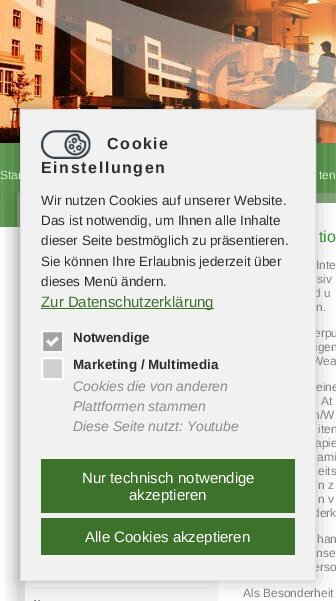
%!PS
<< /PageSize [336 601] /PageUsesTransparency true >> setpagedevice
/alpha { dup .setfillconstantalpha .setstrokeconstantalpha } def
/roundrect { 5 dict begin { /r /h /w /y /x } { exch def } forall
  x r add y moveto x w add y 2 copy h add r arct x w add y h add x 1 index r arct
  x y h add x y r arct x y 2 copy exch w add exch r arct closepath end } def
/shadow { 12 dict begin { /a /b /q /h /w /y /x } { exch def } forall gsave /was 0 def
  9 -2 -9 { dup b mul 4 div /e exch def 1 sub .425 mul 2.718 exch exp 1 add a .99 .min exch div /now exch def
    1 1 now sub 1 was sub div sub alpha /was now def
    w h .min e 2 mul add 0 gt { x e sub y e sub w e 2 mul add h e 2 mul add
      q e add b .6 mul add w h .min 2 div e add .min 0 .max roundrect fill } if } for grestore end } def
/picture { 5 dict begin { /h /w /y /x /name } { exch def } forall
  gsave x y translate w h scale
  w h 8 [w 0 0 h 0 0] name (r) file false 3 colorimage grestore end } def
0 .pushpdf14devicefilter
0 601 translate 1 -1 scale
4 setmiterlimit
1 setgray
0 0 336 601 rectfill
(img1.rgb) 0 143 336 84 picture
(img3.rgb) 0 0 336 143 picture
(img4.rgb) 7 192 329 11 picture
(img5.rgb) 5 203 331 398 picture
30 585 183 1 rectfill
(img6.rgb) 34 600 6 1 picture
0 setgray
20 109 296 472 0 10 0.25 shadow
/LiberationSans-Regular [12 0 0 -12 0 0] selectfont
0.8 0.918 0.773 setrgbcolor
0 179 moveto (Star) show
0.506 0.502 0.502 setrgbcolor
314 297 moveto (d u) show
314 337 moveto (erpu) show
315 351 moveto (igen) show
312 365 moveto (Wea) show
313 419 moveto (n/W) show
315 447 moveto (apie) show
313 517 moveto (derk) show
313 571 moveto (erso) show
0.945 setgray
newpath 20.5 109.5 moveto 315.5 109.5 lineto 315.5 580.5 lineto 20.5 580.5 lineto closepath gsave fill grestore
0.878 setgray
stroke
(img2.rgb) 41 130 50 29 picture
/LiberationSans-Bold [16 0 0 -16 0 0] selectfont
0.176 setgray
107 149 moveto 1.6 0 (Cookie) ashow
41 173 moveto 1.6 0 (Einstellungen) ashow
/LiberationSans-Regular [13.5 0 0 -13.5 0 0] selectfont
41 205 moveto (Wir nutzen Cookies auf unserer Website.) show
41 225 moveto (Das ist notwendig, um Ihnen alle Inhalte) show
41 245 moveto (dieser Seite bestmöglich zu präsentieren.) show
41 266 moveto (Sie können Ihre Erlaubnis jederzeit über) show
41 286 moveto (dieses Menü ändern.) show
0.235 0.447 0.165 setrgbcolor
41 308 173 1 rectfill
/LiberationSans-Regular [15 0 0 -15 0 0] selectfont
41 307 moveto (Zur Datenschutzerklärung) show
0.639 setgray
newpath 42 331 moveto 63 331 lineto 63 352 lineto 42 352 lineto closepath gsave fill grestore
0.969 setgray
2 setlinewidth
stroke
newpath 56.5 336.5 moveto 59 339 lineto 51 346.5 lineto 49 344.5 lineto closepath fill
newpath 48.5 339.5 moveto 53 344.5 lineto 51 346.5 lineto 46 341.5 lineto closepath fill
/LiberationSans-Bold [13.5 0 0 -13.5 0 0] selectfont
0.176 setgray
73 342 moveto (Notwendige) show
0.812 setgray
newpath 42 358 moveto 63 358 lineto 63 379 lineto 42 379 lineto closepath gsave fill grestore
1 setgray
stroke
0.176 setgray
73 369 moveto (Marketing / Multimedia) show
/LiberationSans-Italic [14 0 0 -14 0 0] selectfont
0.549 setgray
73 391 moveto (Cookies die von anderen) show
73 411 moveto (Plattformen stammen) show
73 431 moveto (Diese Seite nutzt: Youtube) show
0.235 0.447 0.165 setrgbcolor
41 459 254 54 rectfill
/LiberationSans-Regular [15 0 0 -15 0 0] selectfont
1 setgray
82 483 moveto (Nur technisch notwendige) show
129 500 moveto (akzeptieren) show
0.235 0.447 0.165 setrgbcolor
41 518 254 37 rectfill
1 setgray
85 542 moveto (Alle Cookies akzeptieren) show
/LiberationSans-Regular [12 0 0 -12 0 0] selectfont
0.8 0.918 0.773 setrgbcolor
319 179 moveto (ten) show
/LiberationSans-Regular [16 0 0 -16 0 0] selectfont
0.2 0.584 0.176 setrgbcolor
319 242 moveto (tio) show
/LiberationSans-Regular [12 0 0 -12 0 0] selectfont
0.506 0.502 0.502 setrgbcolor
316 269 moveto (Inte) show
317 283 moveto (siv) show
316 311 moveto (n.) show
316 391 moveto (eine) show
321 405 moveto (At) show
318 433 moveto (iten) show
317 461 moveto (ami) show
318 475 moveto (eits) show
318 489 moveto (n z) show
318 503 moveto (n v) show
317 543 moveto (han) show
316 557 moveto (nse) show
243 597 moveto (Als Besonderheit) show
.poppdf14devicefilter showpage
